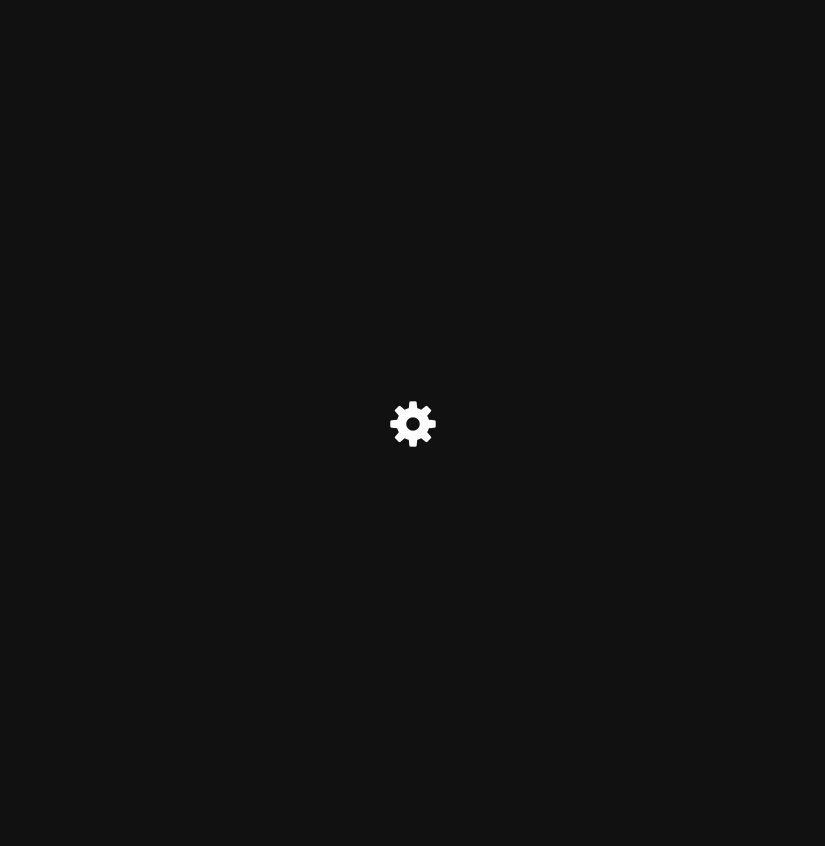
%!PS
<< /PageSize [825 846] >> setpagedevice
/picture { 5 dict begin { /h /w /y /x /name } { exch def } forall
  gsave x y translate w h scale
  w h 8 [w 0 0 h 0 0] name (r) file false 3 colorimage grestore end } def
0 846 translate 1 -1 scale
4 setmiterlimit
0.067 setgray
0 0 825 846 rectfill
(img1.rgb) 390 401 46 46 picture
showpage
